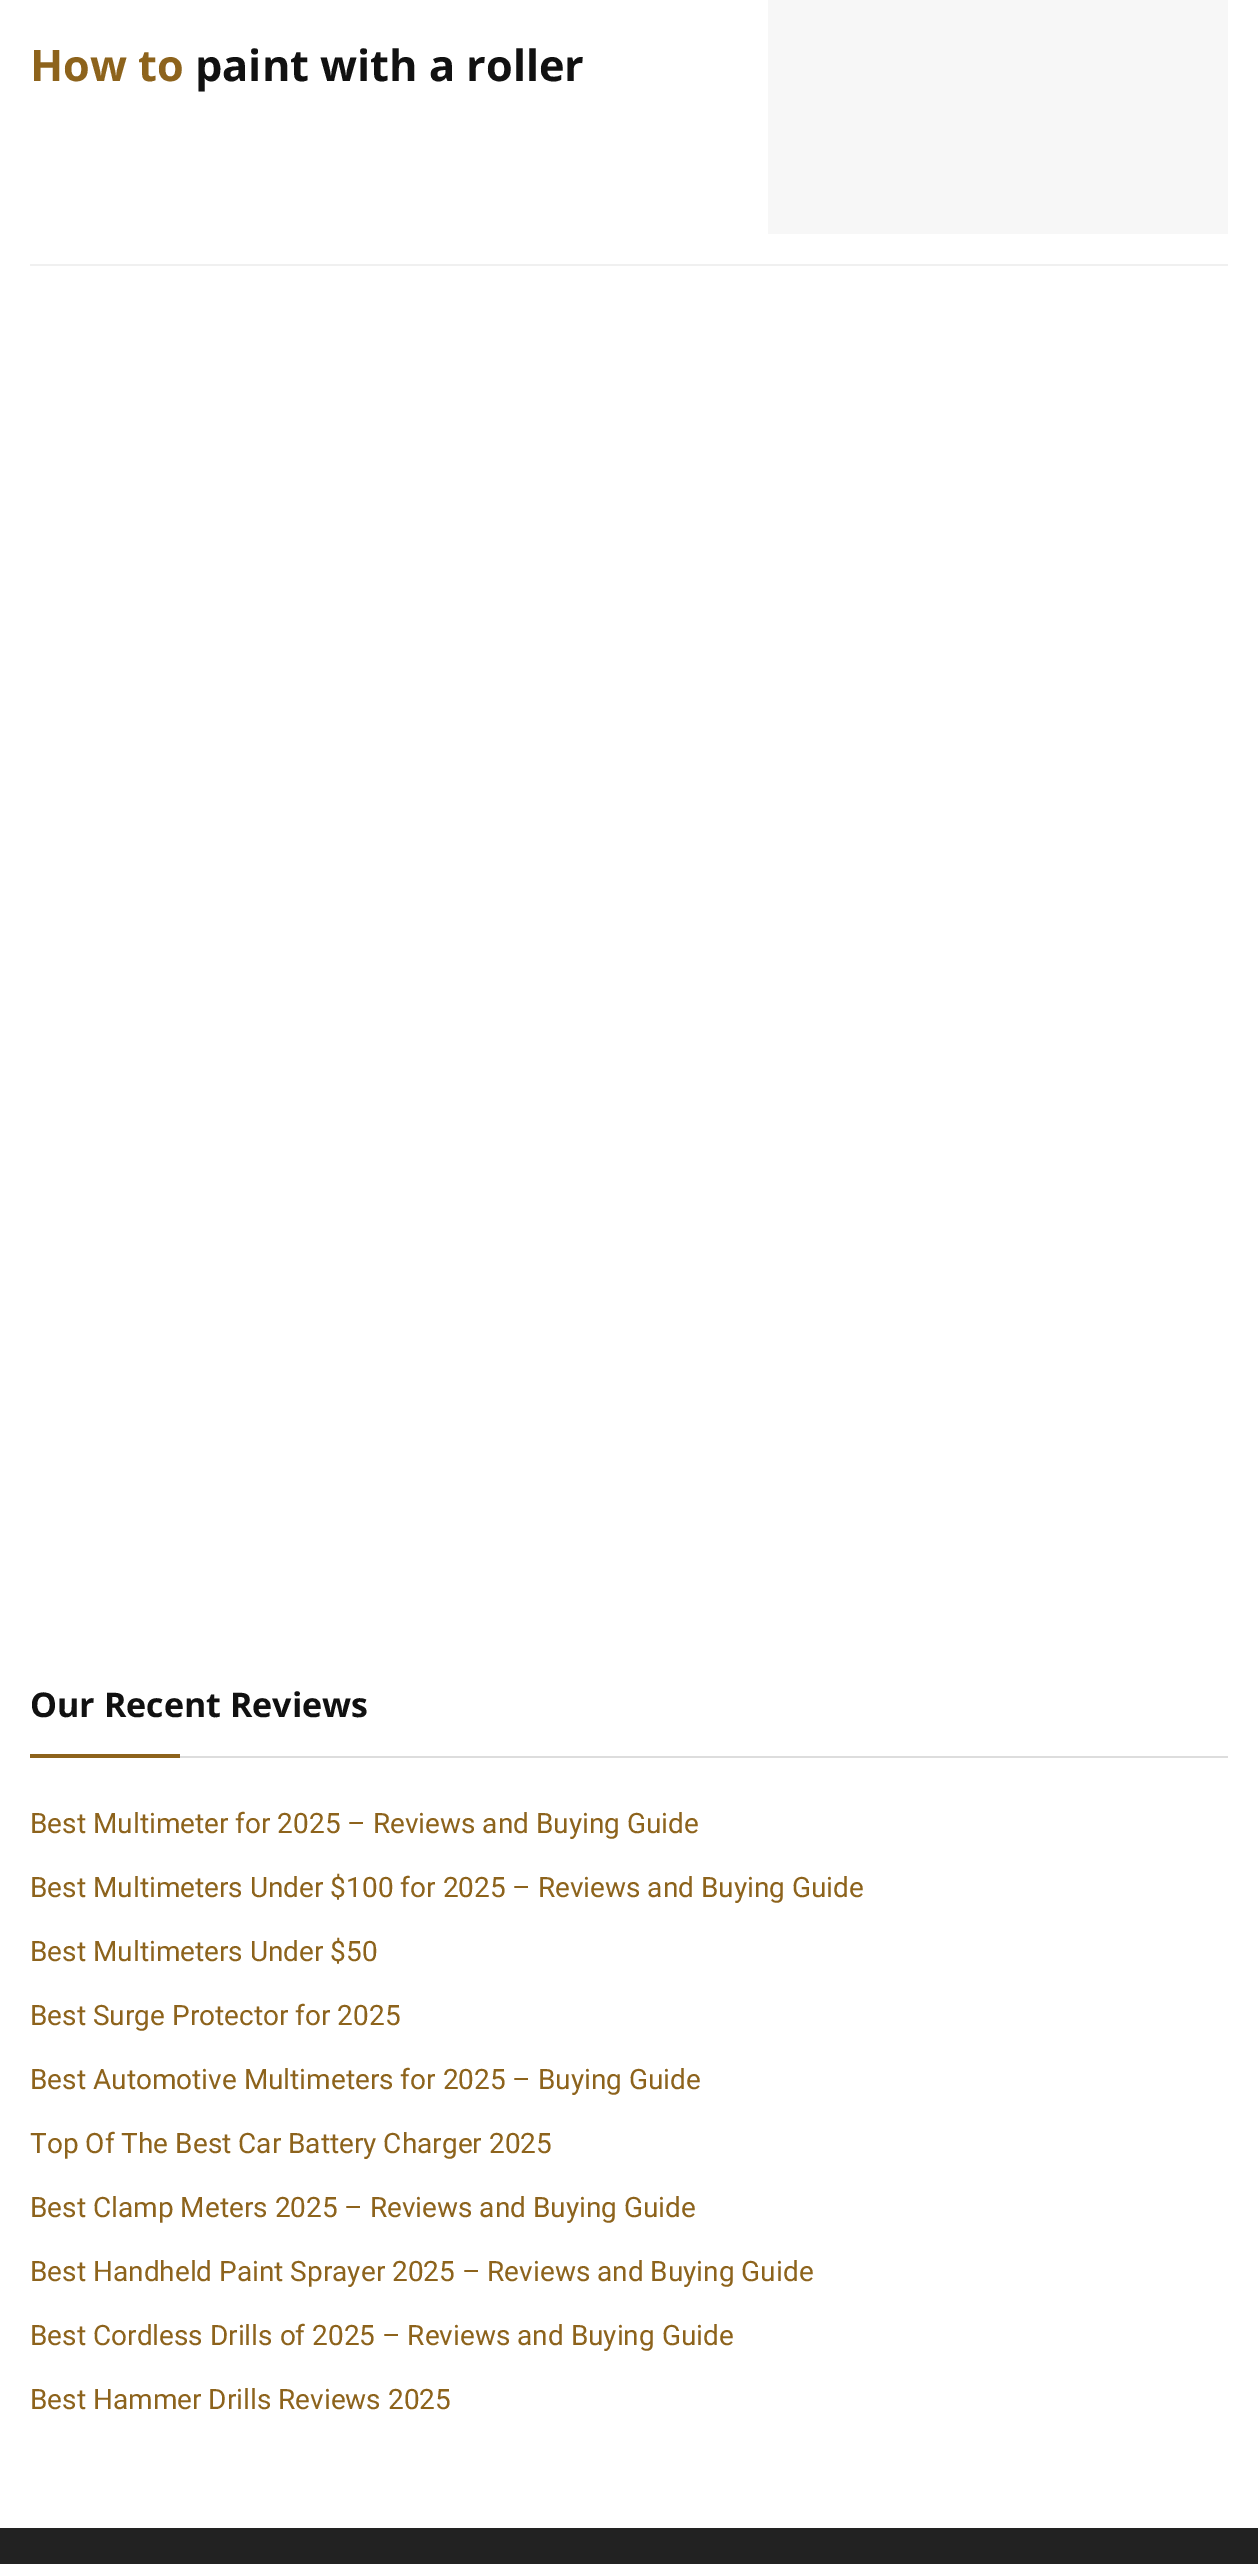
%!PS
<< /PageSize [1258 2564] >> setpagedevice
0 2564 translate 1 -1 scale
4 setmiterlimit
1 setgray
0 0 1258 2564 rectfill
0.941 setgray
30 264 1198 2 rectfill
/OpenSans-Bold [43.25 0 0 -43.25 0 0] selectfont
0.553 0.388 0.11 setrgbcolor
30 81 moveto (How to) show
0.067 setgray
195 81 moveto (paint with a roller) show
0.969 setgray
768 0 460 234 rectfill
0.867 setgray
180 1756 1048 2 rectfill
/OpenSans-Bold [34 0 0 -34 0 0] selectfont
0.067 setgray
30 1717 moveto (Our Recent Reviews) show
0.553 0.388 0.11 setrgbcolor
30 1754 150 4 rectfill
/Roboto-Regular [28 0 0 -28 0 0] selectfont
30 1833 moveto (Best Multimeter for 2025 – Reviews and Buying Guide) show
30 1897 moveto (Best Multimeters Under $100 for 2025 – Reviews and Buying Guide) show
30 1961 moveto (Best Multimeters Under $50) show
30 2025 moveto (Best Surge Protector for 2025) show
30 2089 moveto (Best Automotive Multimeters for 2025 – Buying Guide) show
30 2153 moveto (Top Of The Best Car Battery Charger 2025) show
30 2217 moveto (Best Clamp Meters 2025 – Reviews and Buying Guide) show
30 2281 moveto (Best Handheld Paint Sprayer 2025 – Reviews and Buying Guide) show
30 2345 moveto (Best Cordless Drills of 2025 – Reviews and Buying Guide) show
30 2409 moveto (Best Hammer Drills Reviews 2025) show
0.133 setgray
0 2528 1258 36 rectfill
showpage
